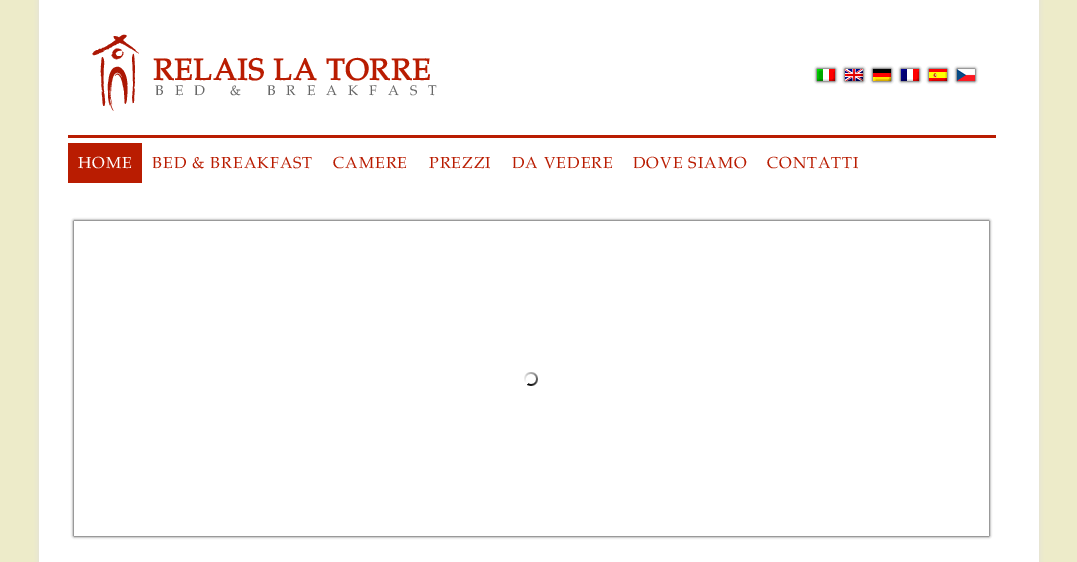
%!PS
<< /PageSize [1077 562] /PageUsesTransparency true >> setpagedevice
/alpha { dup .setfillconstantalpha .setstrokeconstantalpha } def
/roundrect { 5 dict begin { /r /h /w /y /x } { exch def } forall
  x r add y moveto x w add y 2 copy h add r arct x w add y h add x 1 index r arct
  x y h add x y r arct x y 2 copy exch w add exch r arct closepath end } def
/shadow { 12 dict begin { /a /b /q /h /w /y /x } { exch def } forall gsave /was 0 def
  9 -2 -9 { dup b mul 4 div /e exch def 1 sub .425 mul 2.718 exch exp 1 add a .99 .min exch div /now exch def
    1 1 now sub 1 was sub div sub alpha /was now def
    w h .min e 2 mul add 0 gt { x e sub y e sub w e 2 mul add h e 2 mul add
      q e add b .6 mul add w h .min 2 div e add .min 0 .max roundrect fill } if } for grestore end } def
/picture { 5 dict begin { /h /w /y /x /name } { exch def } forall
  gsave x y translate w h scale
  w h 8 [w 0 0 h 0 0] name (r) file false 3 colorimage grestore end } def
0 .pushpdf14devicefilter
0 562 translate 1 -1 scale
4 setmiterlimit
0.929 0.922 0.788 setrgbcolor
0 0 1077 562 rectfill
0.871 setgray
39 0 1000 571 0 3 1 shadow
1 setgray
39 0 1000 562 rectfill
(img1.rgb) 92 34 47 77 picture
/TeXGyrePagella-Bold [30 0 0 -30 0 0] selectfont
0.725 0.11 0.004 setrgbcolor
153 80 moveto 1 0 (RELAIS LA TORRE) ashow
/TeXGyrePagella-Regular [14 0 0 -14 0 0] selectfont
0.4 setgray
155 95 moveto 11 0 (BED & BREAKFAST) ashow
0 setgray
817 69 18 12 0 1.5 1 shadow
(img2.rgb) 817 69 18 12 picture
845 69 18 12 0 1.5 1 shadow
(img3.rgb) 845 69 18 12 picture
873 69 18 12 0 1.5 1 shadow
(img4.rgb) 873 69 18 12 picture
901 69 18 12 0 1.5 1 shadow
(img5.rgb) 901 69 18 12 picture
929 69 18 12 0 1.5 1 shadow
(img6.rgb) 929 69 18 12 picture
957 69 18 12 0 1.5 1 shadow
(img7.rgb) 957 69 18 12 picture
0.725 0.11 0.004 setrgbcolor
68 135 928 3 rectfill
68 143 74 40 rectfill
/TeXGyrePagella-Regular [16 0 0 -16 0 0] selectfont
1 setgray
78 168 moveto 1 0 (HOME) ashow
0.725 0.11 0.004 setrgbcolor
152 168 moveto 1 0 (BED & BREAKFAST) ashow
333 168 moveto 1 0 (CAMERE) ashow
429 168 moveto 1 0 (PREZZI) ashow
512 168 moveto 1 0 (DA VEDERE) ashow
633 168 moveto 1 0 (DOVE SIAMO) ashow
767 168 moveto 1 0 (CONTATTI) ashow
gsave
newpath 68 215 moveto 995 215 lineto 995 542 lineto 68 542 lineto closepath 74 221 moveto 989 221 lineto 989 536 lineto 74 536 lineto closepath eoclip newpath
0 setgray
74 221 915 315 0 1.5 1 shadow
grestore
(img8.rgb) 524 372 14 14 picture
.poppdf14devicefilter showpage
